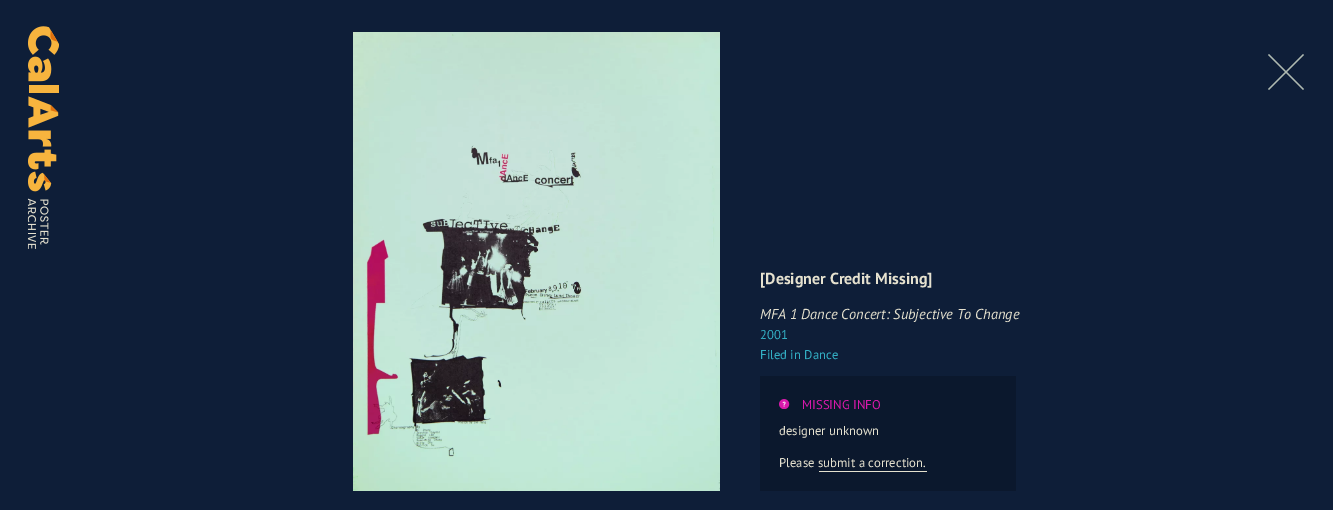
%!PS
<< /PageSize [1333 510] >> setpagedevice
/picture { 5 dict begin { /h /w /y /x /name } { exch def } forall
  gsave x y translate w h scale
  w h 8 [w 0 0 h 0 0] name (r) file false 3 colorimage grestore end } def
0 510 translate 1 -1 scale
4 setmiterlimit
0.055 0.118 0.22 setrgbcolor
0 0 1333 510 rectfill
(img1.rgb) 27 26 32 223 picture
0.686 0.729 0.694 setrgbcolor
newpath 1304 55 moveto 1303 54 lineto 1286 71 lineto 1269 54 lineto 1268 55 lineto 1285 72 lineto 1268 89 lineto 1269 90 lineto 1286 73 lineto 1303 90 lineto 1304 89 lineto 1287 72 lineto closepath fill
(img2.rgb) 353 32 367 459 picture
/PTSans-Bold [16 0 0 -16 0 0] selectfont
0.898 0.882 0.812 setrgbcolor
760 284 moveto ([Designer Credit Missing]) show
/PTSans-Italic [14.4 0 0 -14.4 0 0] selectfont
760 319 moveto (MFA 1 Dance Concert: Subjective To Change) show
/PTSans-Regular [12.75 0 0 -12.75 0 0] selectfont
0.2 0.686 0.769 setrgbcolor
760 339 moveto (2001) show
760 359 moveto (Filed in Dance) show
0.043 0.094 0.176 setrgbcolor
760 376 256 115 rectfill
(img3.rgb) 779 399 11 10 picture
0.847 0.098 0.671 setrgbcolor
802 409 moveto (MISSING INFO) show
0.898 0.882 0.812 setrgbcolor
779 435 moveto (designer unknown) show
779 467 moveto (Please submit a correction.) show
819 471 108 1 rectfill
showpage
